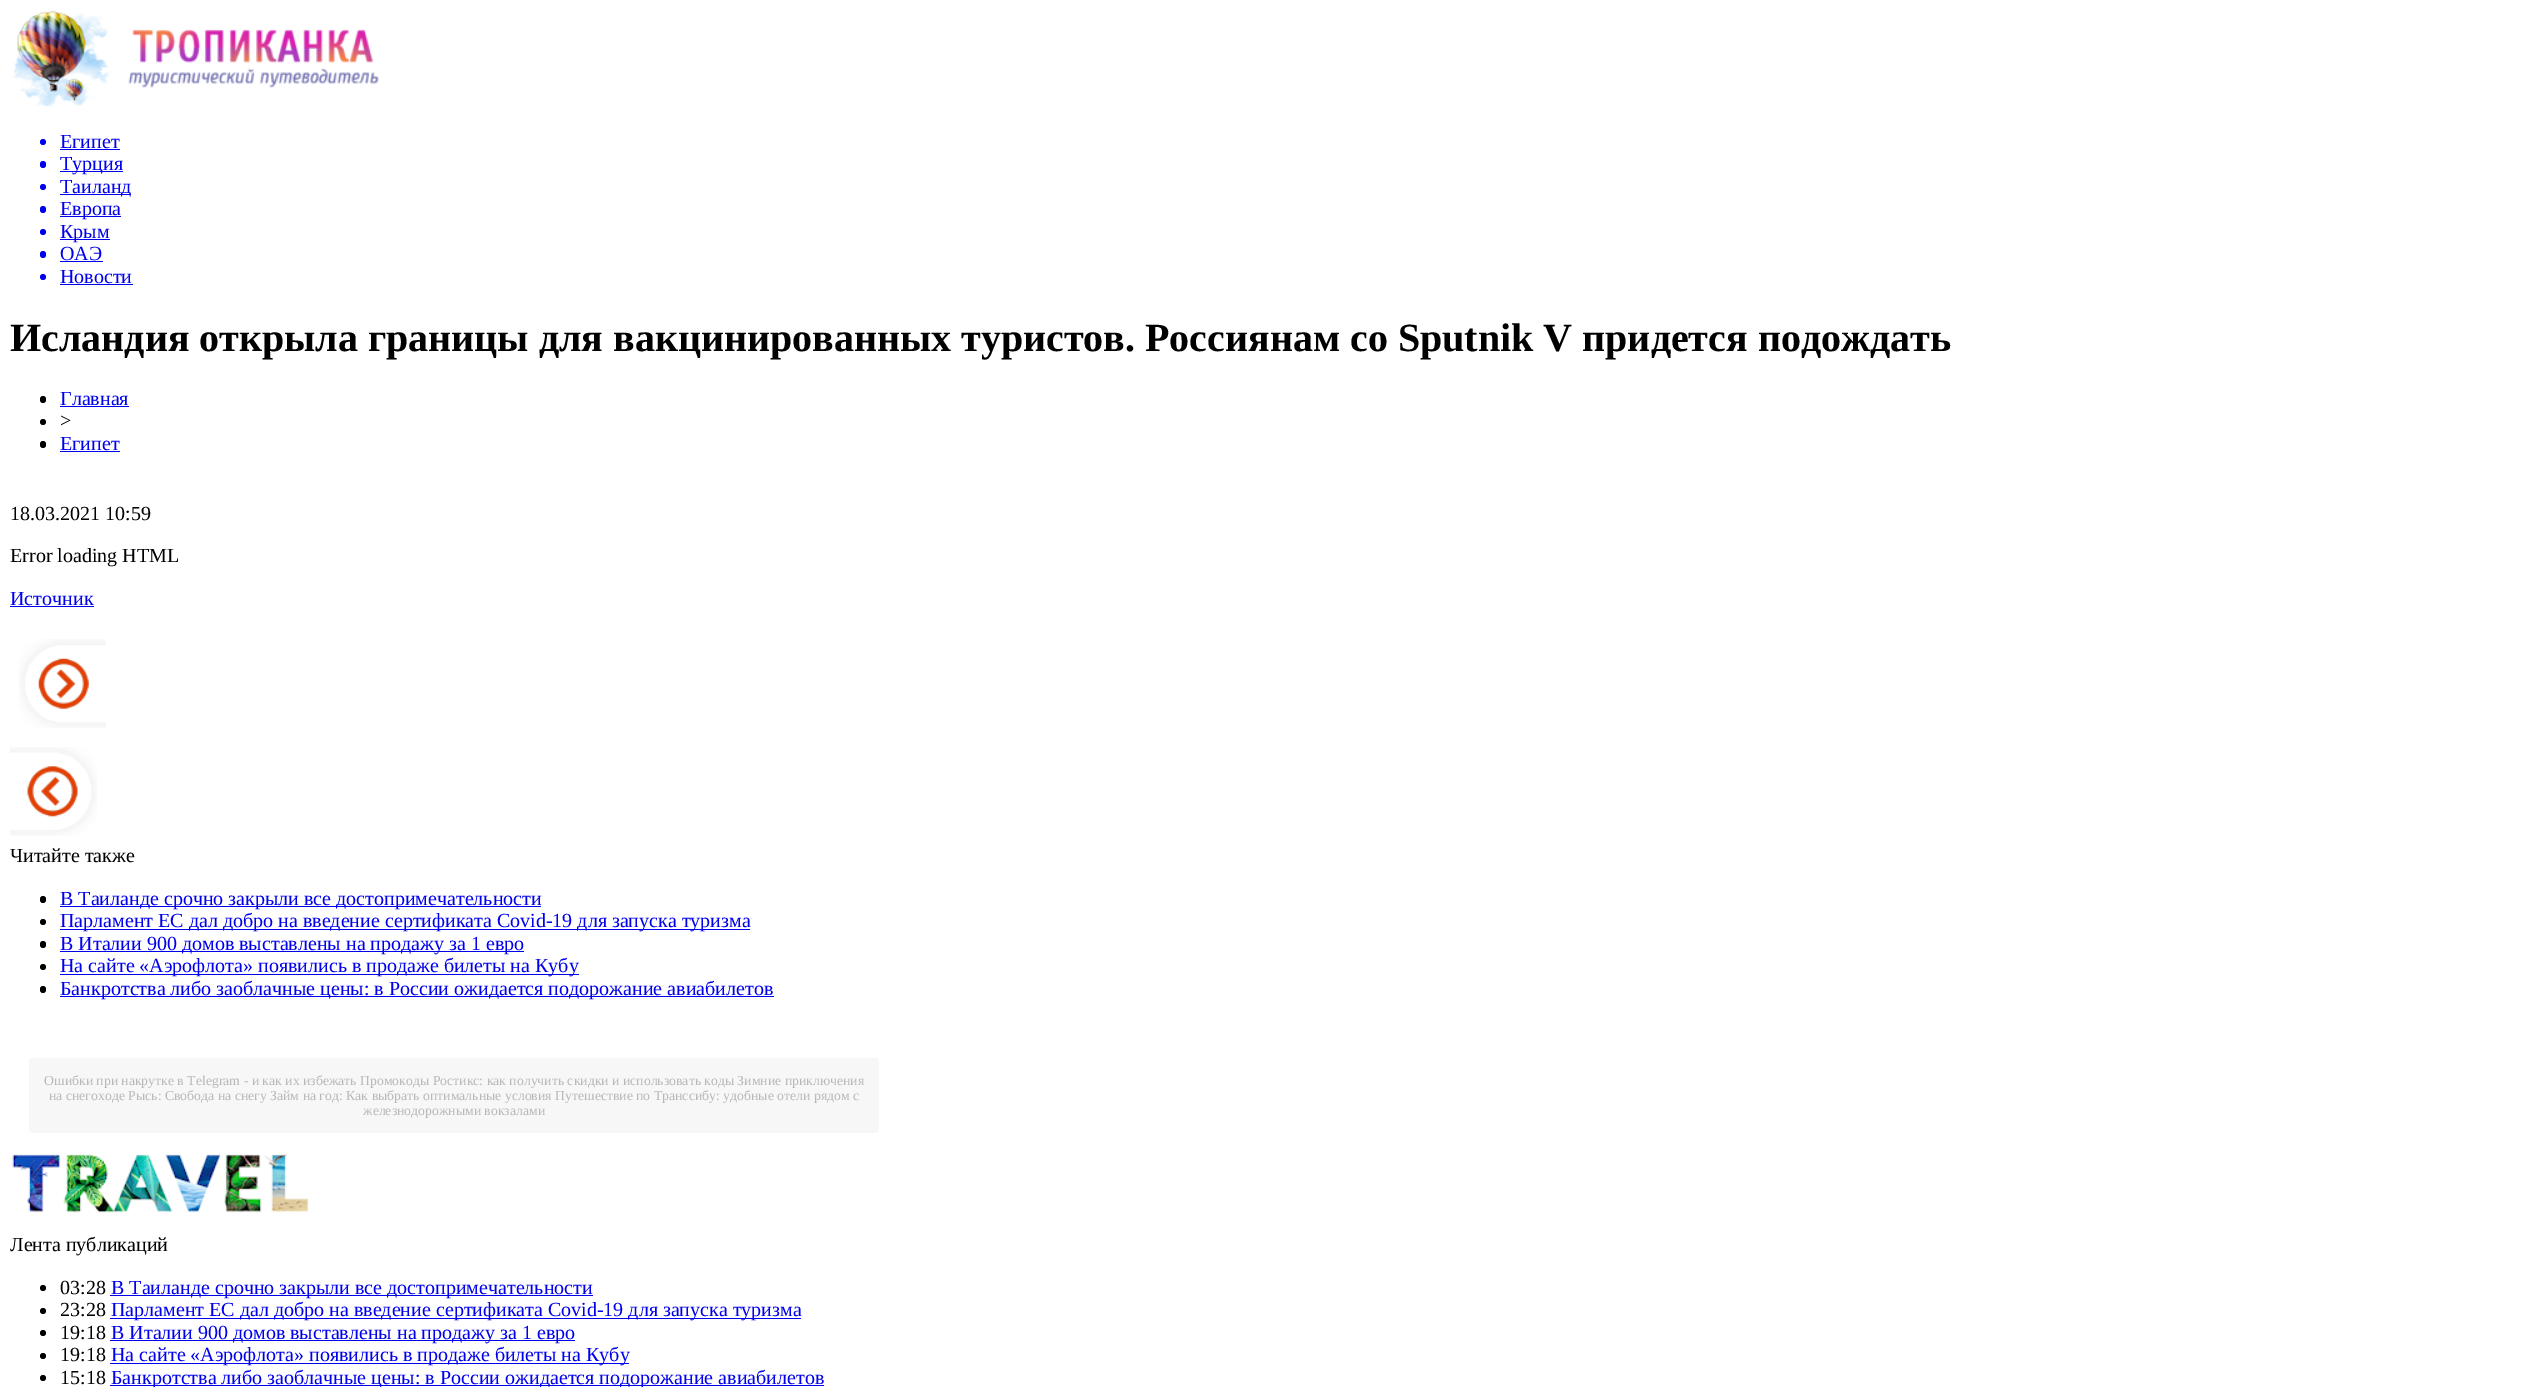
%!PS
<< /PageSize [2523 1387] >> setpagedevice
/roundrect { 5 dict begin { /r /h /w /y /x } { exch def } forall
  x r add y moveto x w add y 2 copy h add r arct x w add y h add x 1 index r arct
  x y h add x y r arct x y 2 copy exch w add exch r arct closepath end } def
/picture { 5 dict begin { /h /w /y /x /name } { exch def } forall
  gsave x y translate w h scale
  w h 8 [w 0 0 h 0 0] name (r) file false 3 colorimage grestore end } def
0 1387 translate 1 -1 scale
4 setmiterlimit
1 setgray
0 0 2523 1387 rectfill
(img1.rgb) 12 11 367 96 picture
0 0 0.933 setrgbcolor
newpath 43 142 3 0 360 arc closepath fill
/LiberationSerif-Regular [20 0 0 -20 0 0] selectfont
60 148 moveto (Египет) show
60 149 60 1 rectfill
40 161 6 7 3 roundrect fill
60 171 63 1 rectfill
60 170 moveto (Турция) show
newpath 43 187 3 0 360 arc closepath fill
60 194 71 1 rectfill
60 193 moveto (Таиланд) show
40 206 6 7 3 roundrect fill
60 216 61 1 rectfill
60 215 moveto (Европа) show
newpath 43 232 3 0 360 arc closepath fill
60 239 50 1 rectfill
60 238 moveto (Крым) show
40 251 6 7 3 roundrect fill
60 260 moveto (ОАЭ) show
60 261 43 1 rectfill
newpath 43 277 3 0 360 arc closepath fill
60 283 moveto (Новости) show
60 284 73 1 rectfill
/LiberationSerif-Bold [40 0 0 -40 0 0] selectfont
0 setgray
10 351 moveto (Исландия открыла границы для вакцинированных туристов. Россиянам со Sputnik V придется подождать) show
40 396 6 7 3 roundrect fill
/LiberationSerif-Regular [20 0 0 -20 0 0] selectfont
0 0 0.933 setrgbcolor
60 405 moveto (Главная) show
60 406 69 1 rectfill
0 setgray
newpath 43 422 3 0 360 arc closepath fill
60 427 moveto (>) show
40 441 6 7 3 roundrect fill
0 0 0.933 setrgbcolor
60 450 moveto (Египет) show
60 451 60 1 rectfill
0 setgray
10 520 moveto (18.03.2021 10:59) show
10 562 moveto (Error loading HTML) show
0 0 0.933 setrgbcolor
10 605 moveto (Источник) show
10 606 84 1 rectfill
(img2.rgb) 19 639 87 89 picture
(img3.rgb) 10 747 87 89 picture
0 setgray
10 862 moveto (Читайте также) show
40 896 6 7 3 roundrect fill
0 0 0.933 setrgbcolor
60 906 481 1 rectfill
60 905 moveto (В Таиланде срочно закрыли все достопримечательности) show
0 setgray
newpath 43 922 3 0 360 arc closepath fill
0 0 0.933 setrgbcolor
60 929 690 1 rectfill
60 927 moveto (Парламент ЕС дал добро на введение сертификата Covid-19 для запуска туризма) show
0 setgray
40 941 6 7 3 roundrect fill
0 0 0.933 setrgbcolor
60 951 464 1 rectfill
60 950 moveto (В Италии 900 домов выставлены на продажу за 1 евро) show
0 setgray
newpath 43 967 3 0 360 arc closepath fill
0 0 0.933 setrgbcolor
60 974 519 1 rectfill
60 972 moveto (На сайте «Аэрофлота» появились в продаже билеты на Кубу) show
0 setgray
40 986 6 7 3 roundrect fill
0 0 0.933 setrgbcolor
60 996 714 1 rectfill
60 995 moveto (Банкротства либо заоблачные цены: в России ожидается подорожание авиабилетов) show
0.969 setgray
29 1058 850 75 4 roundrect fill
/LiberationSerif-Regular [13.75 0 0 -13.75 0 0] selectfont
0.722 setgray
44 1085 moveto (Ошибки при накрутке в Telegram - и как их избежать Промокоды Ростикс: как получить скидки и использовать коды Зимние приключения) show
49 1100 moveto (на снегоходе Рысь: Свобода на снегу Займ на год: Как выбрать оптимальные условия Путешествие по Транссибу: удобные отели рядом с) show
363 1115 moveto (железнодорожными вокзалами) show
(img4.rgb) 12 1153 297 60 picture
/LiberationSerif-Regular [20 0 0 -20 0 0] selectfont
0 setgray
10 1251 moveto (Лента публикаций) show
newpath 43 1288 3 0 360 arc closepath fill
60 1294 moveto (03:28) show
0 0 0.933 setrgbcolor
110 1295 483 1 rectfill
111 1294 moveto (В Таиланде срочно закрыли все достопримечательности) show
0 setgray
newpath 43 1311 3 0 360 arc closepath fill
60 1316 moveto (23:28) show
0 0 0.933 setrgbcolor
110 1318 691 1 rectfill
111 1316 moveto (Парламент ЕС дал добро на введение сертификата Covid-19 для запуска туризма) show
0 setgray
newpath 43 1333 3 0 360 arc closepath fill
60 1339 moveto (19:18) show
0 0 0.933 setrgbcolor
110 1340 465 1 rectfill
111 1339 moveto (В Италии 900 домов выставлены на продажу за 1 евро) show
0 setgray
newpath 43 1356 3 0 360 arc closepath fill
60 1361 moveto (19:18) show
0 0 0.933 setrgbcolor
110 1363 519 1 rectfill
111 1361 moveto (На сайте «Аэрофлота» появились в продаже билеты на Кубу) show
0 setgray
newpath 43 1378 3 0 360 arc closepath fill
60 1384 moveto (15:18) show
0 0 0.933 setrgbcolor
110 1385 714 1 rectfill
111 1384 moveto (Банкротства либо заоблачные цены: в России ожидается подорожание авиабилетов) show
showpage
